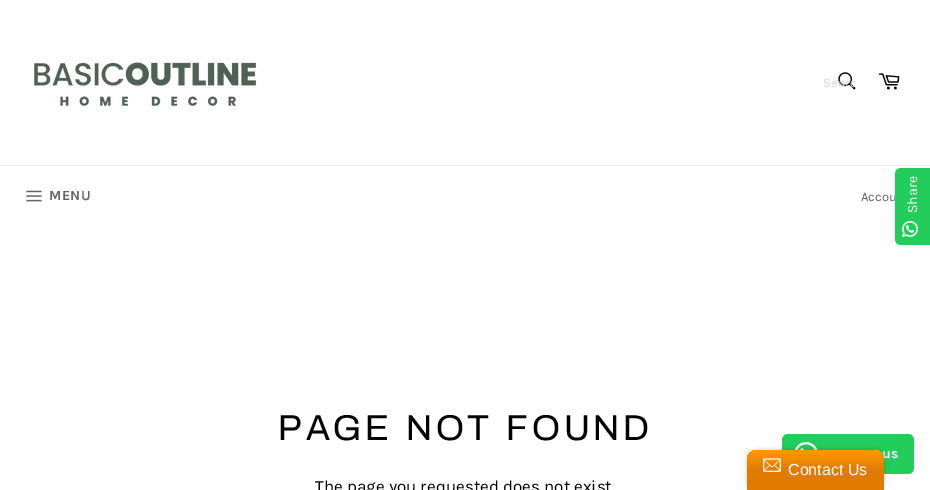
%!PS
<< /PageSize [930 490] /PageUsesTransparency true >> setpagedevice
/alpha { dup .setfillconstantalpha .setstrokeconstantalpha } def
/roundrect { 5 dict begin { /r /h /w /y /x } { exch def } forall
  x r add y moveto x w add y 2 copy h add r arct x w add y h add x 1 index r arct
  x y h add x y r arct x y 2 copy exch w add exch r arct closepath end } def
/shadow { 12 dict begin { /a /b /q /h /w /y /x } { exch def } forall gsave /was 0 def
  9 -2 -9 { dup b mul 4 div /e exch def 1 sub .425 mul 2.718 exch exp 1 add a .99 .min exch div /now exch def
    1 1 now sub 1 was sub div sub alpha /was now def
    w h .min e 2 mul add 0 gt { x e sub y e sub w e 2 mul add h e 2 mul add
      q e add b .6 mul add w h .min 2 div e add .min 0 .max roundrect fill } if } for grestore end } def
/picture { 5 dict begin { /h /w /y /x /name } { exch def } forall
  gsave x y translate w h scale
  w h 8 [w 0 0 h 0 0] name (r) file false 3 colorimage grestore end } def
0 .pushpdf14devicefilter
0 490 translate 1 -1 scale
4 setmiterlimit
1 setgray
0 0 930 490 rectfill
(img1.rgb) 34 62 223 44 picture
(img2.rgb) 838 72 18 18 picture
gsave
823 75 32 15 rectclip
/Karla-Regular [13 0 0 -13 0 0] selectfont
0.843 setgray
823 87 moveto (Searc) show
grestore
(img3.rgb) 878 73 22 17 picture
0.949 setgray
0 165 930 1 rectfill
(img4.rgb) 26 190 16 12 picture
/Karla-Bold [14 0 0 -14 0 0] selectfont
0.4 setgray
49 200 moveto 0.5 0 (MENU) ashow
/Karla-Regular [13 0 0 -13 0 0] selectfont
861 201 moveto (Accou) show
0.133 0.804 0.357 setrgbcolor
newpath 901 168 moveto 930 168 lineto 930 245 lineto 901 245 lineto 897.5 245 895 242.5 895 239 curveto 895 174 lineto 895 170.5 897.5 168 901 168 curveto closepath fill
/Karla-Regular [14 0 0 -14 0 0] selectfont
1 setgray
gsave 917 213 translate -90 rotate 0 0 moveto (Share) show grestore
(img5.rgb) 902 221 16 16 picture
/Archivo-Regular [36 0 0 -36 0 0] selectfont
0.012 setgray
278 440 moveto 3.6 0 (PAGE NOT FOUND) ashow
/Karla-Regular [17 0 0 -17 0 0] selectfont
315 492 moveto (The page you requested does not exist) show
0.133 0.804 0.357 setrgbcolor
782 434 132 40 6 roundrect fill
(img6.rgb) 795 442 23 8 picture
/Karla-Bold [14 0 0 -14 0 0] selectfont
1 setgray
882 458 moveto (us) show
0 setgray
747 450 137 40 10 2.5 0.2 shadow
gsave newpath 757 450 moveto 874 450 lineto 879.5 450 884 454.5 884 460 curveto 884 490 lineto 747 490 lineto 747 460 lineto 747 454.5 751.5 450 757 450 curveto closepath clip newpath
<< /ShadingType 2 /ColorSpace /DeviceRGB /Coords [816 450 816 490] /Extend [true true] /Function << /FunctionType 3 /Domain [0 1] /Functions [<< /FunctionType 2 /Domain [0 1] /C0 [1 0.6 0] /C1 [0.882 0.482 0] /N 1 >> << /FunctionType 2 /Domain [0 1] /C0 [0.882 0.482 0] /C1 [0.882 0.482 0] /N 1 >>] /Bounds [0.5] /Encode [0 1 0 1] >> >> shfill grestore
(img7.rgb) 763 458 18 14 picture
/LiberationSans-Regular [16 0 0 -16 0 0] selectfont
1 setgray
788 475 moveto (Contact Us) show
.poppdf14devicefilter showpage
